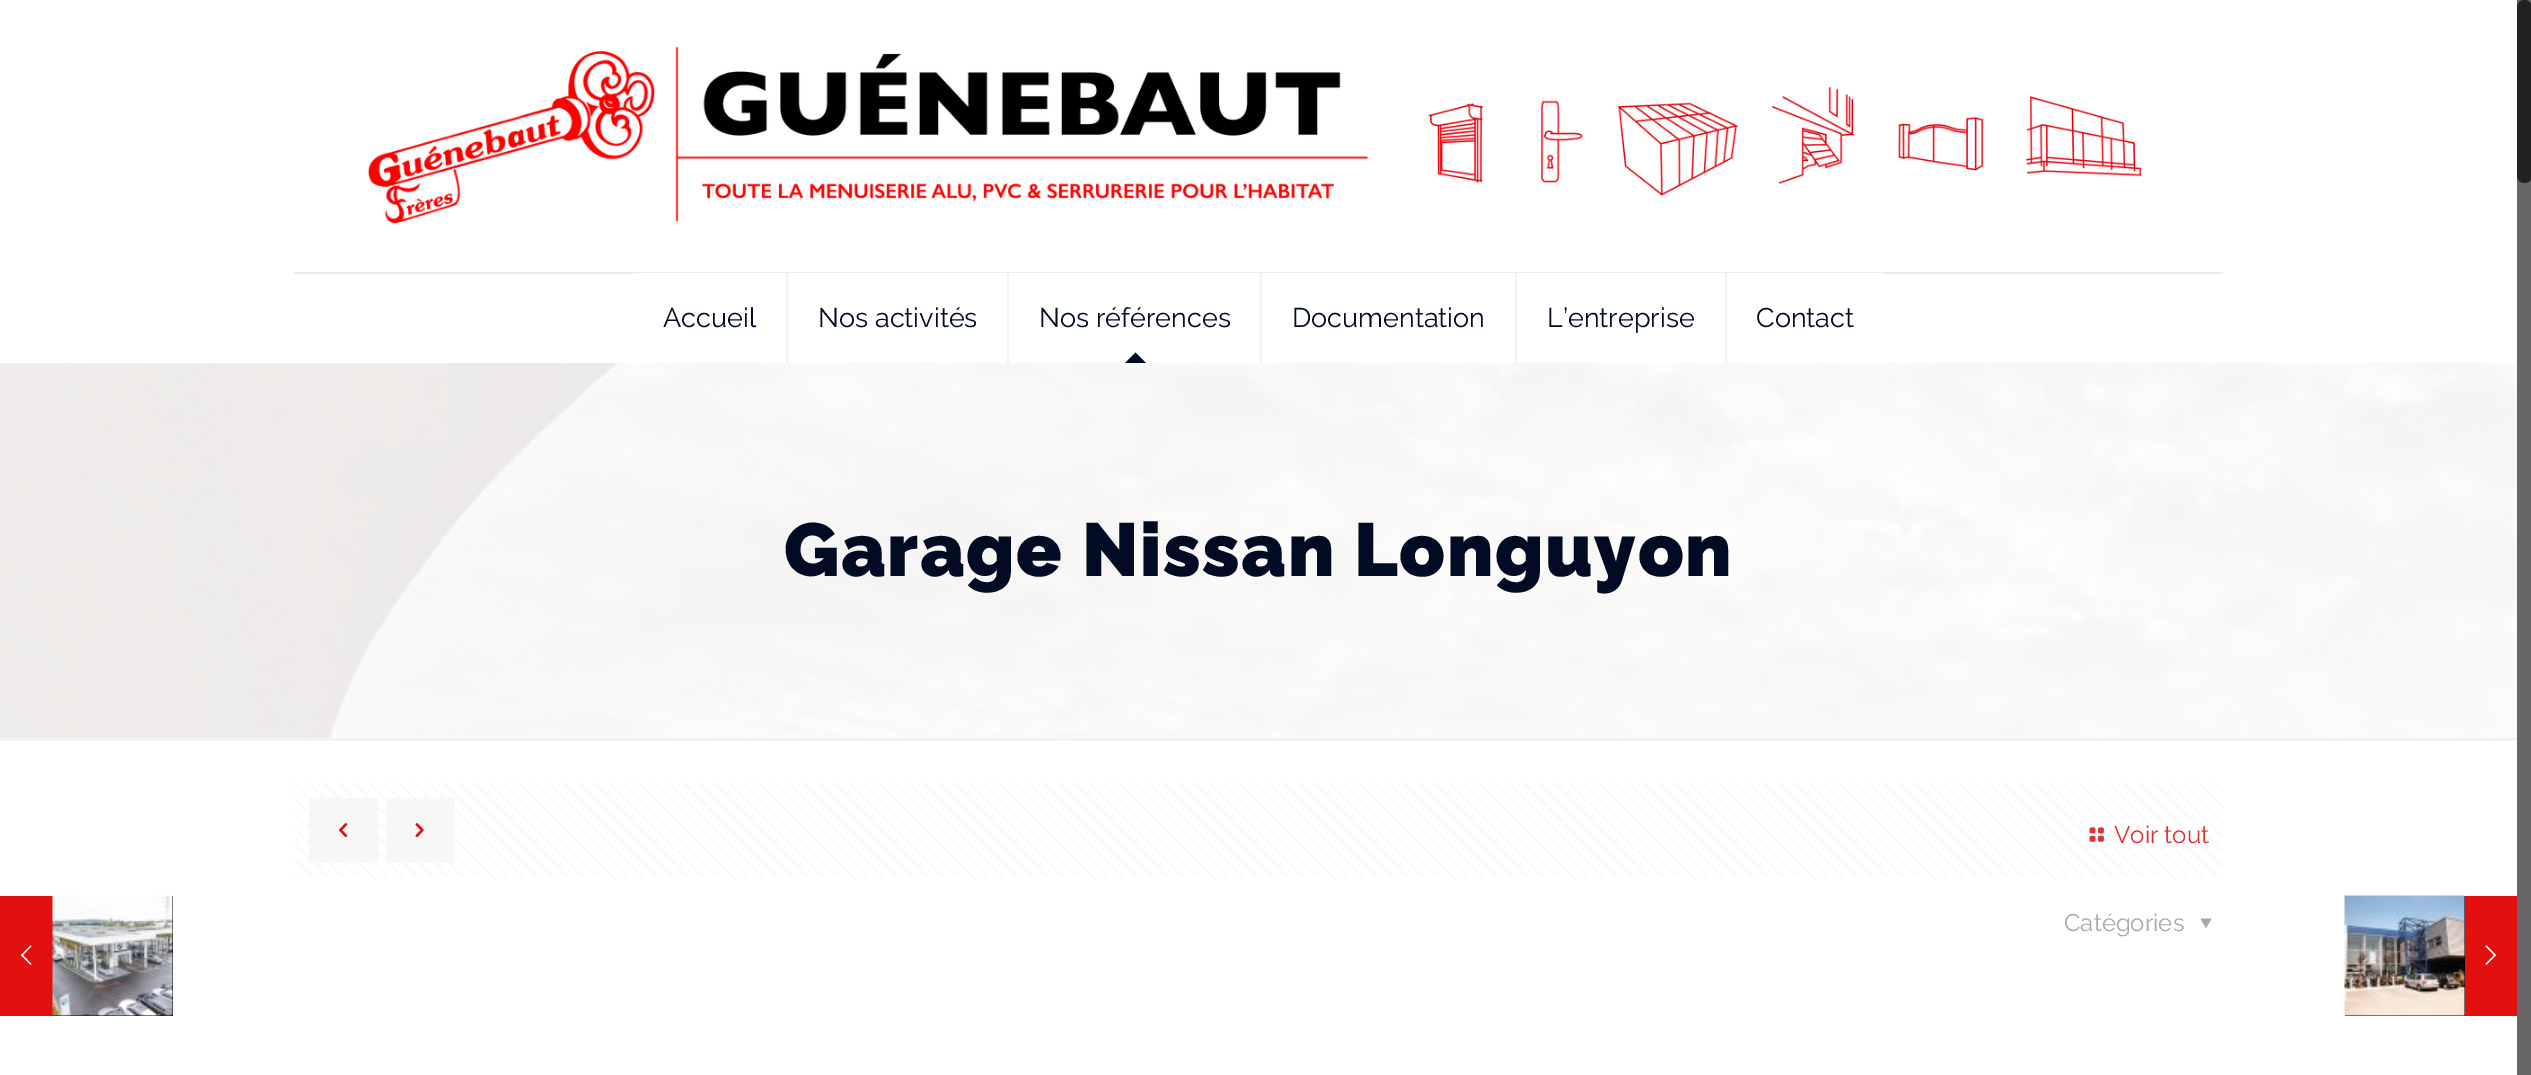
%!PS
<< /PageSize [2531 1075] >> setpagedevice
/roundrect { 5 dict begin { /r /h /w /y /x } { exch def } forall
  x r add y moveto x w add y 2 copy h add r arct x w add y h add x 1 index r arct
  x y h add x y r arct x y 2 copy exch w add exch r arct closepath end } def
/picture { 5 dict begin { /h /w /y /x /name } { exch def } forall
  gsave x y translate w h scale
  w h 8 [w 0 0 h 0 0] name (r) file false 3 colorimage grestore end } def
0 1075 translate 1 -1 scale
4 setmiterlimit
1 setgray
0 0 2531 1075 rectfill
(img1.rgb) 0 363 2517 375 picture
0.922 setgray
294 272 1929 2 rectfill
(img2.rgb) 368 46 1774 178 picture
1 setgray
633 273 1251 1 rectfill
0.949 setgray
786 273 2 90 rectfill
/Raleway-Regular [27 0 0 -27 0 0] selectfont
0.004 0.043 0.137 setrgbcolor
663 327 moveto (Accueil) show
0.949 setgray
1007 273 2 90 rectfill
0.004 0.043 0.137 setrgbcolor
818 327 moveto (Nos activités) show
0.949 setgray
1260 273 2 90 rectfill
0.004 0.043 0.137 setrgbcolor
1039 327 moveto (Nos références) show
newpath 1146 363 moveto 1125 363 lineto 1135.5 352.5 lineto closepath fill
0.949 setgray
1515 273 2 90 rectfill
0.004 0.043 0.137 setrgbcolor
1292 327 moveto (Documentation) show
0.949 setgray
1725 273 2 90 rectfill
0.004 0.043 0.137 setrgbcolor
1547 327 moveto (L’entreprise) show
1756 327 moveto (Contact) show
/Raleway-Black [75 0 0 -75 0 0] selectfont
784 576 moveto 1.5 0 (Garage Nissan Longuyon) ashow
0.949 setgray
0 738 2517 3 rectfill
(img3.rgb) 294 783 1929 94 picture
0.969 setgray
309 798 69 65 rectfill
(img4.rgb) 339 823 9 14 picture
386 798 69 65 rectfill
(img5.rgb) 415 823 9 14 picture
(img6.rgb) 2089 827 15 15 picture
/Raleway-Regular [24 0 0 -24 0 0] selectfont
0.867 0.2 0.2 setrgbcolor
2114 843 moveto (Voir tout) show
0.659 setgray
2064 931 moveto (Catégories) show
newpath 2211.5 918.5 moveto 2206 928 lineto 2200.5 918.5 lineto closepath fill
0.4 setgray
2517 0 14 1075 rectfill
0.133 setgray
2517 0 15 183 7.5 roundrect fill
0.894 0.059 0.059 setrgbcolor
0 896 53 120 rectfill
(img7.rgb) 21 945 11 20 picture
0 setgray
53 896 120 120 rectfill
(img8.rgb) 52 895 121 121 picture
2345 896 120 120 rectfill
(img9.rgb) 2344 895 121 121 picture
0.894 0.059 0.059 setrgbcolor
2465 896 52 120 rectfill
(img10.rgb) 2485 945 11 20 picture
showpage
